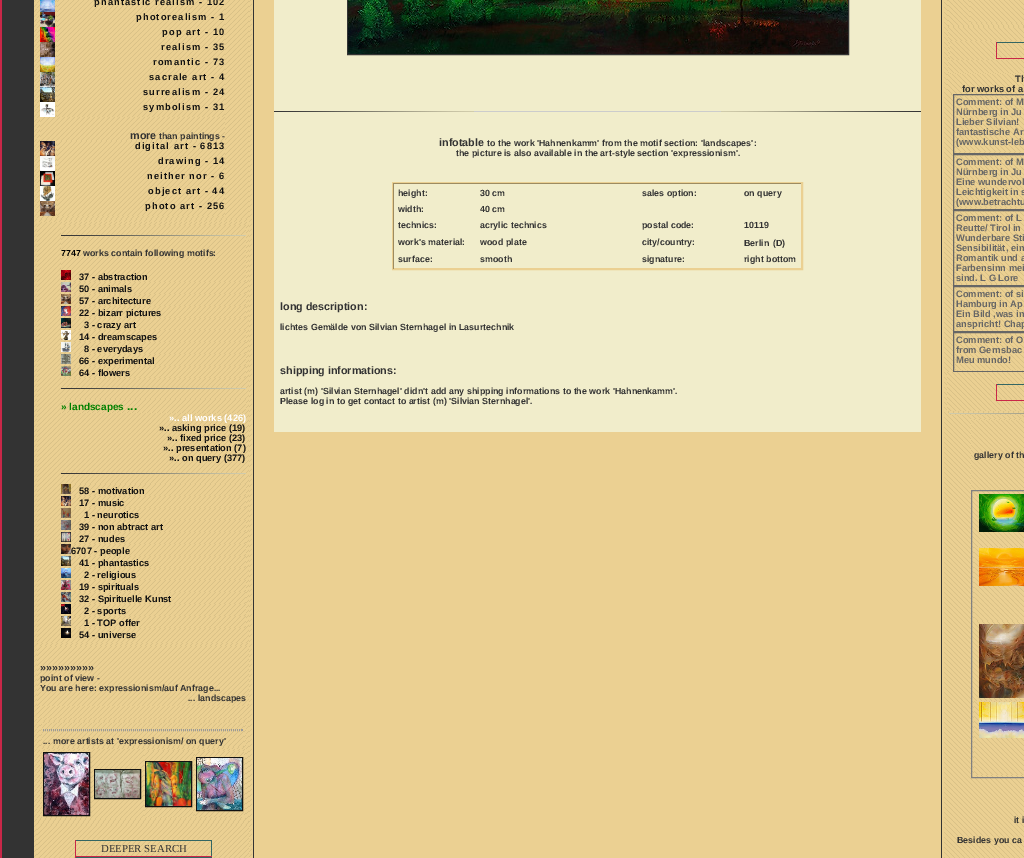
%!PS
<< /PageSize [1024 858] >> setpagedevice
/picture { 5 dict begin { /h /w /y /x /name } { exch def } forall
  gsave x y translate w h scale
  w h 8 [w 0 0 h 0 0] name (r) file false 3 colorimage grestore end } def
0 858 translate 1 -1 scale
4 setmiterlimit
0.922 0.816 0.573 setrgbcolor
0 0 1024 858 rectfill
0.788 0.153 0.282 setrgbcolor
newpath 0 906 moveto 0 -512 lineto 2 -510 lineto 2 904 lineto closepath fill
0.2 setgray
2 0 32 858 rectfill
(img1.rgb) 34 0 218 858 picture
(img2.rgb) 37 0 212 219 picture
(img3.rgb) 55 0 2 12 picture
(img4.rgb) 40 0 15 12 picture
(img5.rgb) 57 0 168 12 picture
/LiberationSans-Bold [9.3 0 0 -9.3 0 0] selectfont
0.067 setgray
94 5 moveto 1.1 0 (phantastic realism - 102) ashow
(img6.rgb) 55 12 2 15 picture
(img7.rgb) 40 12 15 15 picture
(img8.rgb) 57 12 168 15 picture
136 20 moveto 1.1 0 (photorealism - 1) ashow
(img6.rgb) 55 27 2 15 picture
(img9.rgb) 40 27 15 15 picture
(img8.rgb) 57 27 168 15 picture
162 35 moveto 1.1 0 (pop art - 10) ashow
(img6.rgb) 55 42 2 15 picture
(img10.rgb) 40 42 15 15 picture
(img8.rgb) 57 42 168 15 picture
161 50 moveto 1.1 0 (realism - 35) ashow
(img6.rgb) 55 57 2 15 picture
(img11.rgb) 40 57 15 15 picture
(img8.rgb) 57 57 168 15 picture
153 65 moveto 1.1 0 (romantic - 73) ashow
(img6.rgb) 55 72 2 15 picture
(img12.rgb) 40 72 15 15 picture
(img8.rgb) 57 72 168 15 picture
149 80 moveto 1.1 0 (sacrale art - 4) ashow
(img6.rgb) 55 87 2 15 picture
(img13.rgb) 40 87 15 15 picture
(img8.rgb) 57 87 168 15 picture
143 95 moveto 1.1 0 (surrealism - 24) ashow
(img6.rgb) 55 102 2 15 picture
(img14.rgb) 40 102 15 15 picture
(img8.rgb) 57 102 168 15 picture
143 110 moveto 1.1 0 (symbolism - 31) ashow
(img15.rgb) 40 117 185 24 picture
/LiberationSans-Bold [10.75 0 0 -10.75 0 0] selectfont
0.2 setgray
130 139 moveto (more) show
/LiberationSans-Bold [8.9 0 0 -8.9 0 0] selectfont
159 139 moveto (than paintings -) show
(img6.rgb) 55 141 2 15 picture
(img16.rgb) 40 141 15 15 picture
(img8.rgb) 57 141 168 15 picture
/LiberationSans-Bold [9.3 0 0 -9.3 0 0] selectfont
0.067 setgray
135 149 moveto 1.1 0 (digital art - 6813) ashow
(img6.rgb) 55 156 2 15 picture
(img17.rgb) 40 156 15 15 picture
(img8.rgb) 57 156 168 15 picture
158 164 moveto 1.1 0 (drawing - 14) ashow
(img6.rgb) 55 171 2 15 picture
(img18.rgb) 40 171 15 15 picture
(img8.rgb) 57 171 168 15 picture
147 179 moveto 1.1 0 (neither nor - 6) ashow
(img6.rgb) 55 186 2 15 picture
(img19.rgb) 40 186 15 15 picture
(img8.rgb) 57 186 168 15 picture
148 194 moveto 1.1 0 (object art - 44) ashow
(img6.rgb) 55 201 2 15 picture
(img20.rgb) 40 201 15 15 picture
(img8.rgb) 57 201 168 15 picture
145 209 moveto 1.1 0 (photo art - 256) ashow
(img21.rgb) 37 222 212 421 picture
(img22.rgb) 61 225 185 45 picture
(img23.rgb) 61 235 185 1 picture
/LiberationSans-Bold [8.9 0 0 -8.9 0 0] selectfont
0 setgray
61 256 moveto (7747) show
0.2 setgray
83 256 moveto (works contain following motifs:) show
(img24.rgb) 61 270 185 12 picture
(img25.rgb) 61 270 10 10 picture
/LiberationSans-Bold [9.3 0 0 -9.3 0 0] selectfont
0.067 setgray
79 280 moveto (37 - abstraction) show
(img24.rgb) 61 282 185 12 picture
(img26.rgb) 61 282 10 10 picture
79 292 moveto (50 - animals) show
(img24.rgb) 61 294 185 12 picture
(img27.rgb) 61 294 10 10 picture
79 304 moveto (57 - architecture) show
(img24.rgb) 61 306 185 12 picture
(img28.rgb) 61 306 10 10 picture
79 316 moveto (22 - bizarr pictures) show
(img24.rgb) 61 318 185 12 picture
(img29.rgb) 61 318 10 10 picture
84 328 moveto (3 - crazy art) show
(img24.rgb) 61 330 185 12 picture
(img30.rgb) 61 330 10 10 picture
79 340 moveto (14 - dreamscapes) show
(img24.rgb) 61 342 185 12 picture
(img31.rgb) 61 342 10 10 picture
84 352 moveto (8 - everydays) show
(img24.rgb) 61 354 185 12 picture
(img32.rgb) 61 354 10 10 picture
79 364 moveto (66 - experimental) show
(img24.rgb) 61 366 185 12 picture
(img33.rgb) 61 366 10 10 picture
79 376 moveto (64 - flowers) show
(img34.rgb) 61 378 185 21 picture
(img23.rgb) 61 388 185 1 picture
(img35.rgb) 61 399 185 14 picture
/LiberationSans-Bold [10 0 0 -10 0 0] selectfont
0 0.502 0 setrgbcolor
61 410 moveto (» landscapes) show
/LiberationSans-Bold [12 0 0 -12 0 0] selectfont
127 410 moveto (...) show
(img36.rgb) 61 413 185 50 picture
/LiberationSans-Bold [9.3 0 0 -9.3 0 0] selectfont
1 setgray
169 421 moveto (».. all works \(426\)) show
0.067 setgray
159 431 moveto (».. asking price \(19\)) show
167 441 moveto (».. fixed price \(23\)) show
163 451 moveto (».. presentation \(7\)) show
169 461 moveto (».. on query \(377\)) show
(img34.rgb) 61 463 185 21 picture
(img23.rgb) 61 473 185 1 picture
(img24.rgb) 61 484 185 12 picture
(img37.rgb) 61 484 10 10 picture
79 494 moveto (58 - motivation) show
(img24.rgb) 61 496 185 12 picture
(img38.rgb) 61 496 10 10 picture
79 506 moveto (17 - music) show
(img24.rgb) 61 508 185 12 picture
(img39.rgb) 61 508 10 10 picture
84 518 moveto (1 - neurotics) show
(img24.rgb) 61 520 185 12 picture
(img40.rgb) 61 520 10 10 picture
79 530 moveto (39 - non abtract art) show
(img24.rgb) 61 532 185 12 picture
(img41.rgb) 61 532 10 10 picture
79 542 moveto (27 - nudes) show
(img24.rgb) 61 544 185 12 picture
(img42.rgb) 61 544 10 10 picture
71 554 moveto (6707 - people) show
(img24.rgb) 61 556 185 12 picture
(img43.rgb) 61 556 10 10 picture
79 566 moveto (41 - phantastics) show
(img24.rgb) 61 568 185 12 picture
(img44.rgb) 61 568 10 10 picture
84 578 moveto (2 - religious) show
(img24.rgb) 61 580 185 12 picture
(img45.rgb) 61 580 10 10 picture
79 590 moveto (19 - spirituals) show
(img24.rgb) 61 592 185 12 picture
(img46.rgb) 61 592 10 10 picture
79 602 moveto (32 - Spirituelle Kunst) show
(img24.rgb) 61 604 185 12 picture
(img47.rgb) 61 604 10 10 picture
84 614 moveto (2 - sports) show
(img24.rgb) 61 616 185 12 picture
(img48.rgb) 61 616 10 10 picture
84 626 moveto (1 - TOP offer) show
(img24.rgb) 61 628 185 12 picture
(img49.rgb) 61 628 10 10 picture
79 638 moveto (54 - universe) show
(img50.rgb) 37 646 212 60 picture
/LiberationSans-Bold [10.75 0 0 -10.75 0 0] selectfont
0.2 setgray
40 671 moveto (»»»»»»»»») show
/LiberationSans-Bold [8.9 0 0 -8.9 0 0] selectfont
40 681 moveto (point of view -) show
40 691 moveto (You are here: expressionism/auf Anfrage...) show
188 701 moveto (... landscapes) show
(img51.rgb) 37 709 212 6 picture
(img52.rgb) 37 718 212 104 picture
(img53.rgb) 40 721 206 28 picture
(img54.rgb) 42 723 202 24 picture
0.6 setgray
[1 1] 0 setdash
newpath 43 729.5 moveto 243 729.5 lineto stroke
242 729 1 2 rectfill
newpath 43 730.5 moveto 243 730.5 lineto stroke
0.2 setgray
43 744 moveto (... more artists at 'expressionism/ on query') show
(img55.rgb) 40 749 206 70 picture
(img56.rgb) 42 751 49 66 picture
0.067 setgray
[] 0 setdash
43.5 752.5 46 63 rectstroke
(img57.rgb) 44 753 45 62 picture
(img56.rgb) 93 751 49 66 picture
94.5 769.5 46 29 rectstroke
(img58.rgb) 95 770 45 28 picture
(img56.rgb) 144 751 49 66 picture
145.5 761.5 46 45 rectstroke
(img59.rgb) 146 762 45 44 picture
(img56.rgb) 195 751 49 66 picture
196.5 757.5 46 53 rectstroke
(img60.rgb) 197 758 45 52 picture
(img61.rgb) 37 825 212 33 picture
(img62.rgb) 76 841 135 15 picture
0.2 0.4 0.388 setrgbcolor
75 840 137 1 rectfill
211 840 1 17 rectfill
0.788 0.153 0.282 setrgbcolor
75 856 137 1 rectfill
75 840 1 17 rectfill
/LiberationSerif-Regular [10.75 0 0 -10.75 0 0] selectfont
0.2 setgray
101 852 moveto (DEEPER SEARCH) show
0.2 0.4 0.388 setrgbcolor
75 857 137 1 rectfill
0.788 0.153 0.282 setrgbcolor
75 857 1 1 rectfill
0.2 setgray
253 0 1 858 rectfill
0.945 0.929 0.796 setrgbcolor
274 0 647 432 rectfill
0.2 setgray
347.5 -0.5 501 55 rectstroke
(img63.rgb) 348 0 500 54 picture
0.8 setgray
474 111 247 1 rectfill
(img64.rgb) 274 111 200 1 picture
(img65.rgb) 721 111 200 1 picture
/LiberationSans-Bold [10.75 0 0 -10.75 0 0] selectfont
0.2 setgray
439 146 moveto (infotable) show
/LiberationSans-Bold [8.9 0 0 -8.9 0 0] selectfont
487 146 moveto (to the work 'Hahnenkamm' from the motif section: 'landscapes':) show
456 156 moveto (the picture is also available in the art-style section 'expressionism'.) show
0.922 0.816 0.573 setrgbcolor
392.5 182.5 410 87 rectstroke
0.616 0.545 0.38 setrgbcolor
393 183 409 1 rectfill
0.922 0.816 0.573 setrgbcolor
801 183 1 86 rectfill
393 268 409 1 rectfill
0.616 0.545 0.38 setrgbcolor
393 183 1 86 rectfill
0.2 setgray
398 196 moveto (height:) show
480 196 moveto (30 cm) show
642 196 moveto (sales option:) show
744 196 moveto (on query) show
398 212 moveto (width:) show
480 212 moveto (40 cm) show
398 228 moveto (technics:) show
480 228 moveto (acrylic technics) show
642 228 moveto (postal code:) show
744 228 moveto (10119) show
398 245 moveto (work's material:) show
480 245 moveto (wood plate) show
642 245 moveto (city/country:) show
744 246 moveto (Berlin) show
773 246 moveto (\(D\)) show
398 262 moveto (surface:) show
480 262 moveto (smooth) show
642 262 moveto (signature:) show
744 262 moveto (right bottom) show
/LiberationSans-Bold [10.75 0 0 -10.75 0 0] selectfont
280 310 moveto (long description:) show
/LiberationSans-Bold [8.9 0 0 -8.9 0 0] selectfont
280 330 moveto (lichtes Gemälde von Silvian Sternhagel in Lasurtechnik) show
/LiberationSans-Bold [10.75 0 0 -10.75 0 0] selectfont
280 374 moveto (shipping informations:) show
/LiberationSans-Bold [8.9 0 0 -8.9 0 0] selectfont
280 394 moveto (artist \(m\) 'Silvian Sternhagel' didn't add any shipping informations to the work 'Hahnenkamm'.) show
280 404 moveto (Please log in to get contact to artist \(m\) 'Silvian Sternhagel'.) show
941 0 1 858 rectfill
(img66.rgb) 944 0 80 858 picture
(img67.rgb) 946 0 78 852 picture
(img68.rgb) 948 0 76 26 picture
(img69.rgb) 970 0 54 23 picture
(img70.rgb) 948 27 76 46 picture
(img71.rgb) 950 41 74 19 picture
(img72.rgb) 997 43 27 15 picture
0.2 0.4 0.388 setrgbcolor
996 42 28 1 rectfill
0.788 0.153 0.282 setrgbcolor
996 58 28 1 rectfill
996 42 1 17 rectfill
(img73.rgb) 947 74 77 20 picture
/LiberationSans-Bold [9.3 0 0 -9.3 0 0] selectfont
0.2 setgray
1015 82 moveto (Th) show
962 92 moveto (for works of a) show
0.4 setgray
953.5 94.5 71 59 rectstroke
(img74.rgb) 955 96 69 56 picture
956 105 moveto (Comment: of M) show
956 115 moveto (Nürnberg in Ju) show
956 125 moveto (Lieber Silvian!) show
956 135 moveto (fantastische Ar) show
956 145 moveto (\(www.kunst-leb) show
953.5 154.5 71 55 rectstroke
(img75.rgb) 955 156 69 52 picture
956 165 moveto (Comment: of M) show
956 175 moveto (Nürnberg in Ju) show
956 185 moveto (Eine wundervol) show
956 195 moveto (Leichtigkeit in s) show
956 205 moveto (\(www.betrachtu) show
953.5 210.5 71 75 rectstroke
(img76.rgb) 955 212 69 72 picture
956 221 moveto (Comment: of L) show
956 231 moveto (Reutte/ Tirol in) show
956 241 moveto (Wunderbare Sti) show
956 251 moveto (Sensibilität, ein) show
956 261 moveto (Romantik und a) show
956 271 moveto (Farbensinn mei) show
956 281 moveto (sind. L G Lore) show
953.5 286.5 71 45 rectstroke
(img77.rgb) 955 288 69 42 picture
956 297 moveto (Comment: of si) show
956 307 moveto (Hamburg in Ap) show
956 317 moveto (Ein Bild ,was in) show
956 327 moveto (anspricht! Chap) show
953.5 332.5 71 39 rectstroke
(img78.rgb) 955 334 69 36 picture
956 343 moveto (Comment: of O) show
956 353 moveto (from Gernsbac) show
956 363 moveto (Meu mundo!) show
(img79.rgb) 947 372 77 39 picture
(img72.rgb) 997 385 27 15 picture
0.2 0.4 0.388 setrgbcolor
996 384 28 1 rectfill
0.788 0.153 0.282 setrgbcolor
996 400 28 1 rectfill
996 384 1 17 rectfill
(img80.rgb) 948 412 76 3 picture
(img81.rgb) 949 413 75 1 picture
(img82.rgb) 948 416 76 430 picture
(img83.rgb) 970 419 54 360 picture
(img84.rgb) 971 420 53 70 picture
(img85.rgb) 973 422 51 66 picture
/LiberationSans-Bold [8.9 0 0 -8.9 0 0] selectfont
0.2 setgray
974 458 moveto (gallery of th) show
(img86.rgb) 972 491 52 286 picture
0.502 setgray
971.5 490.5 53 287 rectstroke
(img87.rgb) 974 493 50 52 picture
(img88.rgb) 979 494 45 38 picture
(img89.rgb) 974 547 50 74 picture
(img90.rgb) 979 548 45 38 picture
(img91.rgb) 974 623 50 76 picture
(img92.rgb) 979 624 45 74 picture
(img89.rgb) 974 701 50 74 picture
(img93.rgb) 979 702 45 36 picture
0.2 setgray
1014 823 moveto (it i) show
957 843 moveto (Besides you ca) show
0.922 0.816 0.573 setrgbcolor
1023 854 1 2 rectfill
(img94.rgb) 946 854 77 2 picture
showpage
